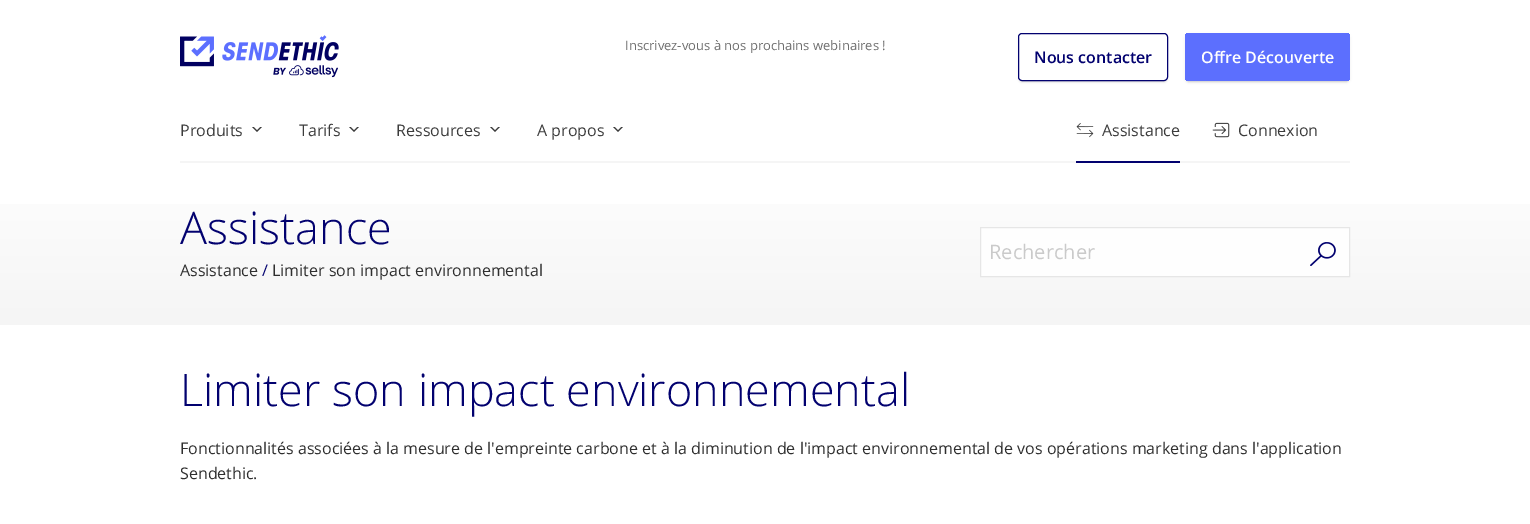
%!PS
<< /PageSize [1530 524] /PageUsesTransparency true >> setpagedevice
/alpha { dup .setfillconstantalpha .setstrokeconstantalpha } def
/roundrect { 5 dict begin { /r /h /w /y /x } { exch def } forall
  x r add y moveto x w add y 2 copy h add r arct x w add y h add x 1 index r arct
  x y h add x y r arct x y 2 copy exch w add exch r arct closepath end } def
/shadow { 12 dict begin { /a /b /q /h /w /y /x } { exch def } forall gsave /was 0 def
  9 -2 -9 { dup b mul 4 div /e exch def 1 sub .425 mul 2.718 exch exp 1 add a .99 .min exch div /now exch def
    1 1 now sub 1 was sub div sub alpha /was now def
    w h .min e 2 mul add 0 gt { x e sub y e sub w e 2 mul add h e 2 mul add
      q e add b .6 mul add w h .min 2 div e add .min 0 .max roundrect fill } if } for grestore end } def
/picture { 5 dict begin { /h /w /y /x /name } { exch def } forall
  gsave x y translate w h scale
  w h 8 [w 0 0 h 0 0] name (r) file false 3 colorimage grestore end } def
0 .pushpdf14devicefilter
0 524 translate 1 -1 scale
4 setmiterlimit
1 setgray
0 0 1530 524 rectfill
0.961 setgray
180 161 1170 2 rectfill
(img1.rgb) 180 35 159 43 picture
/OpenSans-Regular [13 0 0 -13 0 0] selectfont
0.435 setgray
625 50 moveto (Inscrivez-vous à nos prochains webinaires !) show
gsave
newpath 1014 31 moveto 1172 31 lineto 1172 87 lineto 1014 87 lineto closepath 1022 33 moveto 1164 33 lineto 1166 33 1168 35 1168 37 curveto 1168 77 lineto 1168 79 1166 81 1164 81 curveto 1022 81 lineto 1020 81 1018 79 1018 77 curveto 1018 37 lineto 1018 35 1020 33 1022 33 curveto closepath eoclip newpath
0 setgray
1018 35 150 48 4 1 0.05 shadow
grestore
gsave
newpath 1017 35 moveto 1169 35 lineto 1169 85 lineto 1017 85 lineto closepath 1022 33 moveto 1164 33 lineto 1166 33 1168 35 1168 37 curveto 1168 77 lineto 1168 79 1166 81 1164 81 curveto 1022 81 lineto 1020 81 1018 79 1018 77 curveto 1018 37 lineto 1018 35 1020 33 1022 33 curveto closepath eoclip newpath
0 setgray
1020 38 146 44 2 0.5 0.1 shadow
grestore
0.008 0.004 0.435 setrgbcolor
1018.5 33.5 149 47 3.5 roundrect stroke
/OpenSans-SemiBold [16 0 0 -16 0 0] selectfont
1034 63 moveto (Nous contacter) show
0 setgray
1185 34 165 48 4 2.5 0.04 shadow
1185 35 165 48 4 1 0.05 shadow
1187 38 161 44 2 0.5 0.1 shadow
gsave 1185 33 165 48 4 roundrect clip newpath
<< /ShadingType 2 /ColorSpace /DeviceRGB /Coords [1268 33 1268 81] /Extend [true true] /Function << /FunctionType 2 /Domain [0 1] /C0 [0.361 0.435 1] /C1 [0.361 0.435 0.996] /N 1 >> >> shfill grestore
0.996 setgray
1201 63 moveto (Offre Découverte) show
/OpenSans-Regular [16 0 0 -16 0 0] selectfont
0.235 setgray
180 136 moveto (Produits) show
newpath 252 127 moveto 262 127 lineto 257 132 lineto closepath fill
1 setgray
newpath 254 127 moveto 260 127 lineto 257 130 lineto closepath fill
0.235 setgray
299 136 moveto (Tarifs) show
newpath 349 127 moveto 359 127 lineto 354 132 lineto closepath fill
1 setgray
newpath 351 127 moveto 357 127 lineto 354 130 lineto closepath fill
0.235 setgray
396 136 moveto (Ressources) show
newpath 490 127 moveto 500 127 lineto 495 132 lineto closepath fill
1 setgray
newpath 492 127 moveto 498 127 lineto 495 130 lineto closepath fill
0.235 setgray
537 136 moveto (A propos) show
newpath 613 127 moveto 623 127 lineto 618 132 lineto closepath fill
1 setgray
newpath 615 127 moveto 621 127 lineto 618 130 lineto closepath fill
(img2.rgb) 1076 123 18 15 picture
0.235 setgray
1102 136 moveto (Assistance) show
0.008 0.004 0.435 setrgbcolor
1076 161 104 2 rectfill
(img3.rgb) 1212 122 18 16 picture
0.235 setgray
1238 136 moveto (Connexion) show
gsave newpath 0 204 moveto 1530 204 lineto 1530 325 lineto 0 325 lineto closepath clip newpath
<< /ShadingType 2 /ColorSpace /DeviceRGB /Coords [765 163 765 325] /Extend [true true] /Function << /FunctionType 2 /Domain [0 1] /C0 [1 1 1] /C1 [0.961 0.961 0.961] /N 1 >> >> shfill grestore
/OpenSans-Light [45 0 0 -45 0 0] selectfont
0.008 0.004 0.435 setrgbcolor
180 244 moveto (Assistance) show
/OpenSans-Regular [16 0 0 -16 0 0] selectfont
0.184 setgray
180 276 moveto (Assistance) show
0.008 0.004 0.435 setrgbcolor
262 276 moveto (/) show
0.184 setgray
272 276 moveto (Limiter son impact environnemental) show
0.996 setgray
newpath 980.5 227.5 moveto 1349.5 227.5 lineto 1349.5 276.5 lineto 980.5 276.5 lineto closepath gsave fill grestore
0.902 setgray
stroke
/OpenSans-Regular [20 0 0 -20 0 0] selectfont
0.792 setgray
989 259 moveto (Rechercher) show
(img4.rgb) 1310 242 26 24 picture
/OpenSans-Light [45 0 0 -45 0 0] selectfont
0.008 0.004 0.435 setrgbcolor
180 406 moveto (Limiter son impact environnemental) show
/OpenSans-Regular [16 0 0 -16 0 0] selectfont
0.184 setgray
180 454 moveto (Fonctionnalités associées à la mesure de l'empreinte carbone et à la diminution de l'impact environnemental de vos opérations marketing dans l'application) show
180 479 moveto (Sendethic.) show
.poppdf14devicefilter showpage
